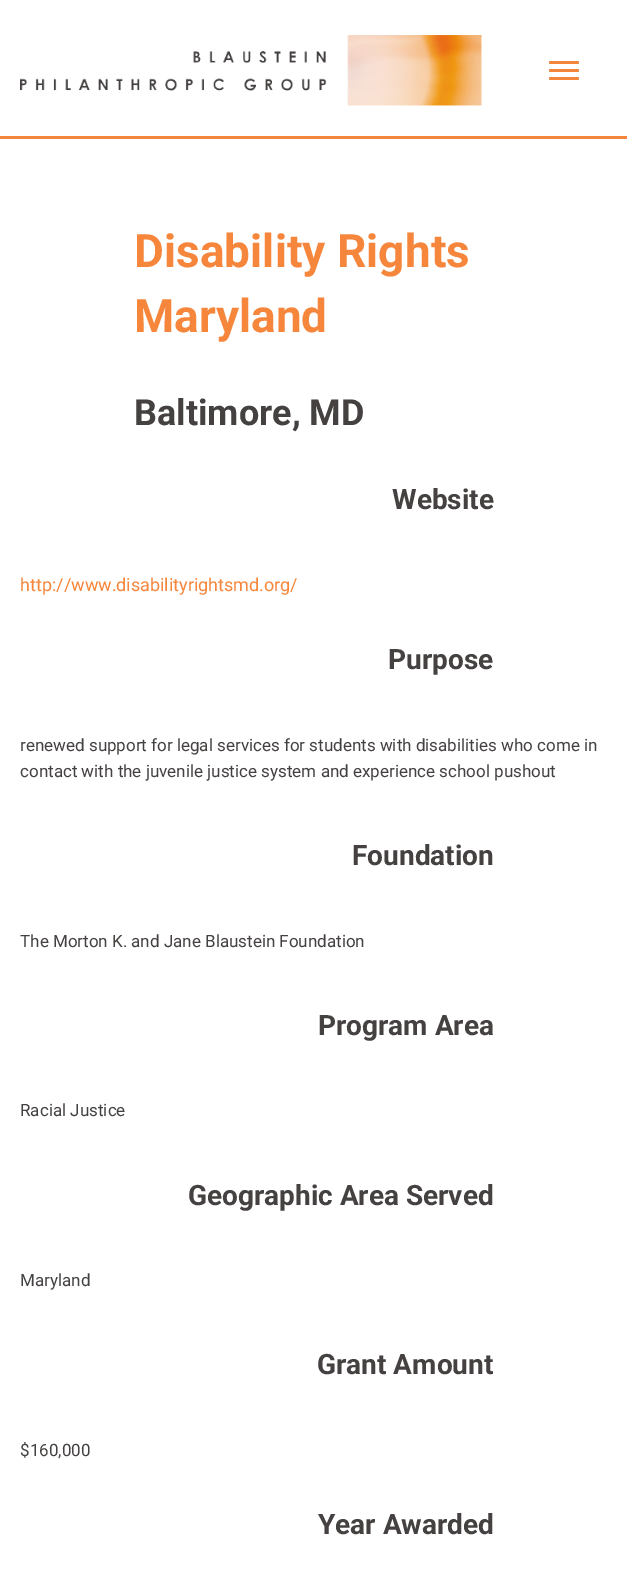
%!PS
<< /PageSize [627 1584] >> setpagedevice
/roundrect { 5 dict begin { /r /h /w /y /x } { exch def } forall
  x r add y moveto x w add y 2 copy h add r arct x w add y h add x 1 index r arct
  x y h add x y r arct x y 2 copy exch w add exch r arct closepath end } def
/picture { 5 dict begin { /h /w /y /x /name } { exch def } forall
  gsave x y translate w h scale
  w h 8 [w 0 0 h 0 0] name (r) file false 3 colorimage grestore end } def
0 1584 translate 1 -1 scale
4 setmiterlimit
1 setgray
0 0 627 1584 rectfill
(img1.rgb) 20 35 462 71 picture
0.961 0.525 0.231 setrgbcolor
549 69 30 3 1.5 roundrect fill
549 61 30 3 1.5 roundrect fill
549 77 30 3 1.5 roundrect fill
0 136 627 3 rectfill
/Roboto-Bold [46 0 0 -46 0 0] selectfont
134 267 moveto (Disability Rights) show
134 332 moveto (Maryland) show
/Roboto-Bold [36 0 0 -36 0 0] selectfont
0.267 0.255 0.251 setrgbcolor
134 425 moveto (Baltimore, MD) show
/Roboto-Bold [28 0 0 -28 0 0] selectfont
392 509 moveto (Website) show
/Roboto-Regular [18 0 0 -18 0 0] selectfont
0.961 0.525 0.231 setrgbcolor
20 591 moveto (http://www.disabilityrightsmd.org/) show
/Roboto-Bold [28 0 0 -28 0 0] selectfont
0.267 0.255 0.251 setrgbcolor
388 669 moveto (Purpose) show
/Roboto-Regular [17 0 0 -17 0 0] selectfont
20 751 moveto (renewed support for legal services for students with disabilities who come in) show
20 777 moveto (contact with the juvenile justice system and experience school pushout) show
/Roboto-Bold [28 0 0 -28 0 0] selectfont
352 865 moveto (Foundation) show
/Roboto-Regular [17 0 0 -17 0 0] selectfont
20 947 moveto (The Morton K. and Jane Blaustein Foundation) show
/Roboto-Bold [28 0 0 -28 0 0] selectfont
318 1035 moveto (Program Area) show
/Roboto-Regular [17 0 0 -17 0 0] selectfont
20 1116 moveto (Racial Justice) show
/Roboto-Bold [28 0 0 -28 0 0] selectfont
188 1205 moveto (Geographic Area Served) show
/Roboto-Regular [17 0 0 -17 0 0] selectfont
20 1286 moveto (Maryland) show
/Roboto-Bold [28 0 0 -28 0 0] selectfont
317 1374 moveto (Grant Amount) show
/Roboto-Regular [17 0 0 -17 0 0] selectfont
20 1456 moveto ($160,000) show
/Roboto-Bold [28 0 0 -28 0 0] selectfont
318 1534 moveto (Year Awarded) show
showpage
